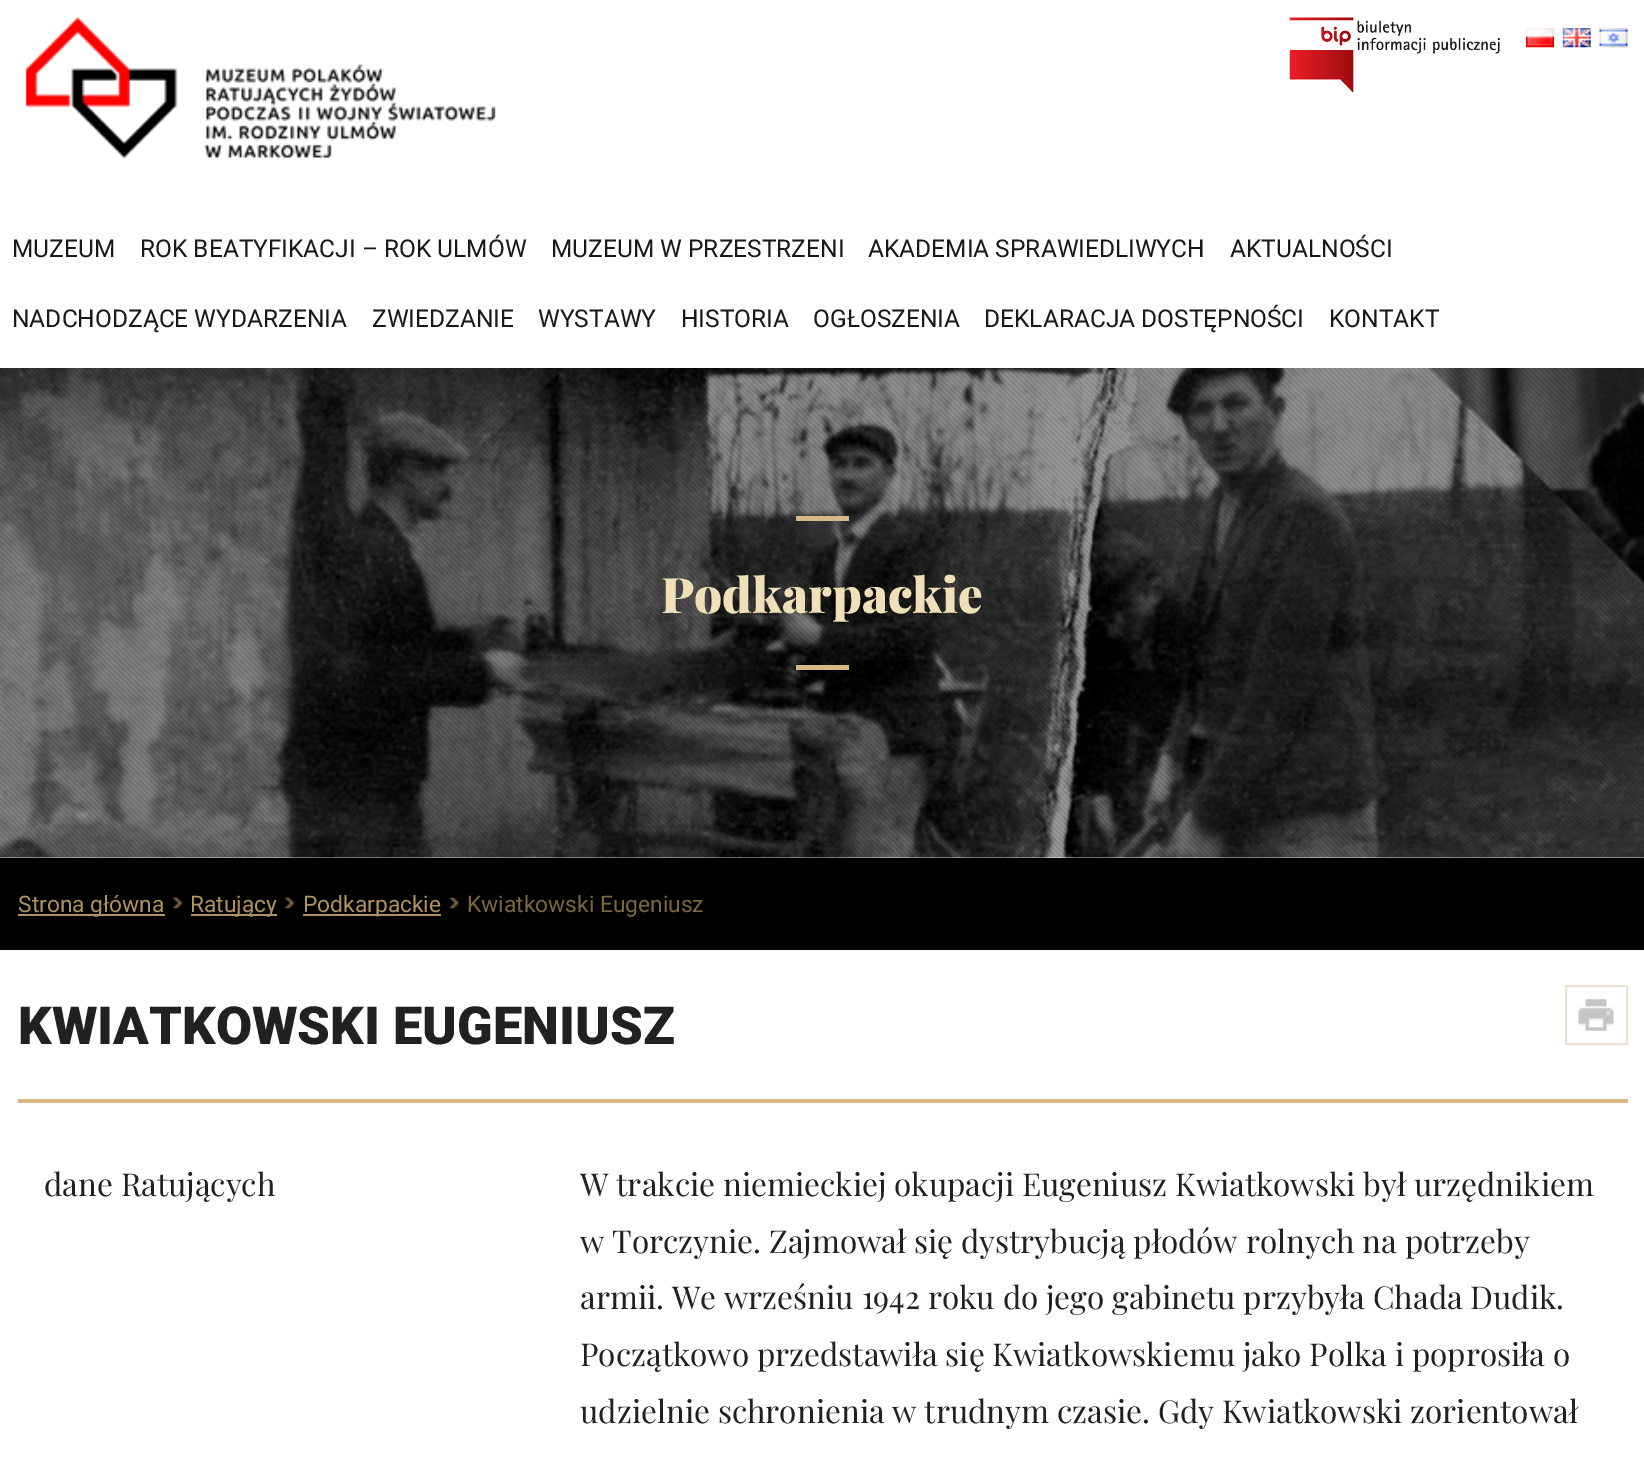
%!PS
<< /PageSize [1644 1471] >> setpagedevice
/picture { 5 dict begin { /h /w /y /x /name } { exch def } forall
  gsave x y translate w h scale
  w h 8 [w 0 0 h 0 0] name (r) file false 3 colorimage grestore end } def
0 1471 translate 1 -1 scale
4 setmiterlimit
1 setgray
0 0 1644 1471 rectfill
(img1.rgb) 26 17 470 141 picture
(img2.rgb) 1289 17 211 76 picture
(img3.rgb) 1526 28 28 20 picture
(img4.rgb) 1562 28 29 20 picture
(img5.rgb) 1599 28 29 20 picture
/Roboto-Regular [24.5 0 0 -24.5 0 0] selectfont
0.098 setgray
12 257 moveto (MUZEUM) show
140 257 moveto (ROK BEATYFIKACJI – ROK ULMÓW) show
551 257 moveto (MUZEUM W PRZESTRZENI) show
868 257 moveto (AKADEMIA SPRAWIEDLIWYCH) show
1230 257 moveto (AKTUALNOŚCI) show
12 327 moveto (NADCHODZĄCE WYDARZENIA) show
372 327 moveto (ZWIEDZANIE) show
538 327 moveto (WYSTAWY) show
681 327 moveto (HISTORIA) show
813 327 moveto (OGŁOSZENIA) show
984 327 moveto (DEKLARACJA DOSTĘPNOŚCI) show
1329 327 moveto (KONTAKT) show
(img6.rgb) 0 368 1644 490 picture
(img7.rgb) 0 368 1644 490 picture
0.847 0.725 0.514 setrgbcolor
796 516 53 5 rectfill
/PlayfairDisplay-Black [49 0 0 -49 0 0] selectfont
0.937 0.878 0.718 setrgbcolor
661 613 moveto (Podkarpackie) show
0.847 0.725 0.514 setrgbcolor
796 665 53 5 rectfill
0 setgray
0 858 1644 92 rectfill
0.69 0.576 0.373 setrgbcolor
18 914 147 2 rectfill
/Roboto-Regular [22.75 0 0 -22.75 0 0] selectfont
18 912 moveto (Strona główna) show
(img8.rgb) 173 897 9 12 picture
191 914 86 2 rectfill
190 912 moveto (Ratujący) show
(img9.rgb) 285 897 9 12 picture
303 914 138 2 rectfill
303 912 moveto (Podkarpackie) show
(img10.rgb) 449 897 10 12 picture
0.482 0.4 0.251 setrgbcolor
467 912 moveto (Kwiatkowski Eugeniusz) show
0.847 0.725 0.514 setrgbcolor
18 1099 1610 4 rectfill
/Roboto-Black [52.5 0 0 -52.5 0 0] selectfont
0.129 setgray
18 1044 moveto (KWIATKOWSKI EUGENIUSZ) show
0.922 0.886 0.82 setrgbcolor
2 setlinewidth
1566 986 61 58 rectstroke
(img11.rgb) 1578 999 36 32 picture
/PlayfairDisplay-Regular [31.5 0 0 -31.5 0 0] selectfont
0.129 setgray
44 1196 moveto (dane Ratujących) show
580 1196 moveto (W trakcie niemieckiej okupacji Eugeniusz Kwiatkowski był urzędnikiem) show
580 1253 moveto (w Torczynie. Zajmował się dystrybucją płodów rolnych na potrzeby) show
580 1309 moveto (armii. We wrześniu 1942 roku do jego gabinetu przybyła Chada Dudik.) show
580 1366 moveto (Początkowo przedstawiła się Kwiatkowskiemu jako Polka i poprosiła o) show
580 1423 moveto (udzielnie schronienia w trudnym czasie. Gdy Kwiatkowski zorientował) show
showpage
